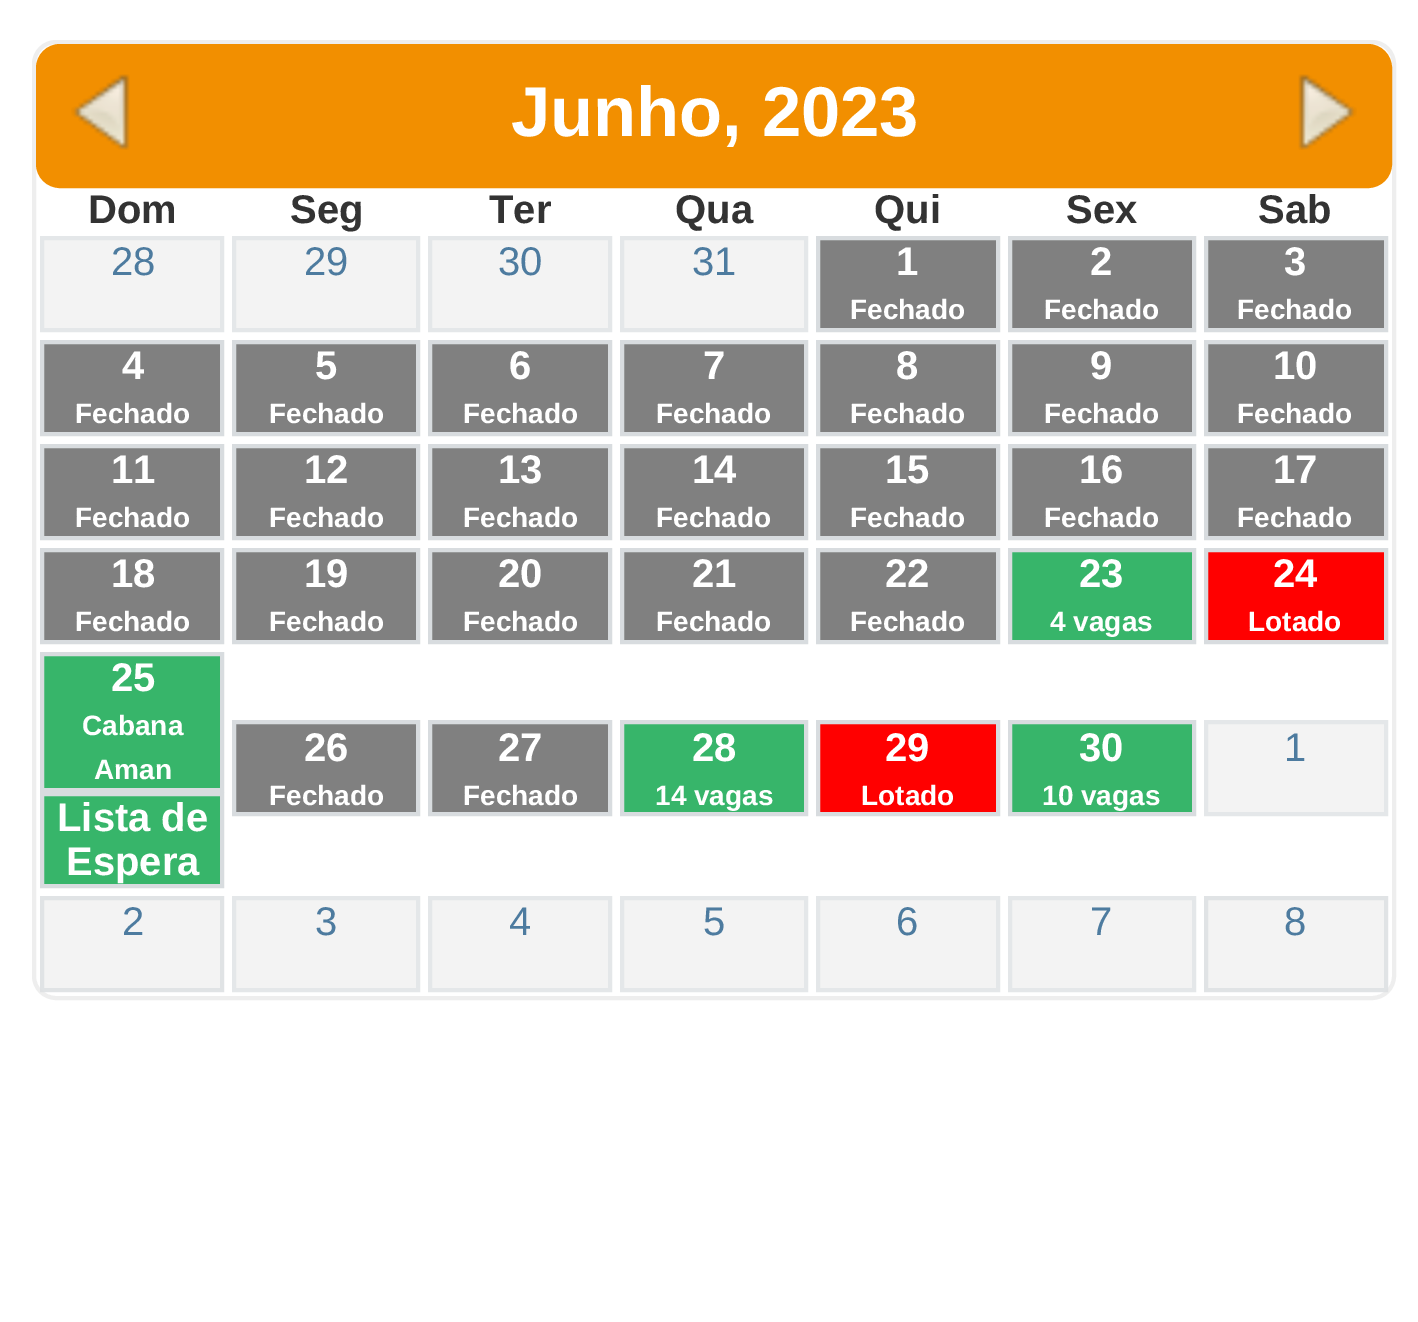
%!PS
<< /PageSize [1418 1322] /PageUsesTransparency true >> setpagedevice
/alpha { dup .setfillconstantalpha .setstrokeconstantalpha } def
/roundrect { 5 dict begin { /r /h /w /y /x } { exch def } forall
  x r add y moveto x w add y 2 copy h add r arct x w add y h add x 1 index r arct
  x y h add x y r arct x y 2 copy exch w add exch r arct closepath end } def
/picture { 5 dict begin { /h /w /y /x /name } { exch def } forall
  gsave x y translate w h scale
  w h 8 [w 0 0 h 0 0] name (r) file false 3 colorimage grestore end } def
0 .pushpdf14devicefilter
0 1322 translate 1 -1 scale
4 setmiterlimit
1 setgray
0 0 1418 1322 rectfill
0.933 setgray
4 setlinewidth
34 42 1360 956 22 roundrect stroke
0.949 0.561 0 setrgbcolor
38 46 1352 140 22 roundrect gsave fill grestore
stroke
(img1.rgb) 71 74 59 76 picture
/LiberationSans-Bold [70.5 0 0 -70.5 0 0] selectfont
1 setgray
511 136 moveto (Junho, 2023) show
(img2.rgb) 1298 74 59 76 picture
/LiberationSans-Bold [40 0 0 -40 0 0] selectfont
0.2 setgray
88 223 moveto (Dom) show
290 223 moveto (Seg) show
489 223 moveto (Ter) show
675 223 moveto (Qua) show
874 223 moveto (Qui) show
1066 223 moveto (Sex) show
1258 223 moveto (Sab) show
0.953 setgray
newpath 42 238 moveto 222 238 lineto 222 330 lineto 42 330 lineto closepath gsave fill grestore
0.894 0.906 0.914 setrgbcolor
stroke
/LiberationSans-Regular [40 0 0 -40 0 0] selectfont
0.302 0.482 0.624 setrgbcolor
111 275 moveto (28) show
0.953 setgray
newpath 234 238 moveto 418 238 lineto 418 330 lineto 234 330 lineto closepath gsave fill grestore
0.894 0.906 0.914 setrgbcolor
stroke
0.302 0.482 0.624 setrgbcolor
304 275 moveto (29) show
0.953 setgray
newpath 430 238 moveto 610 238 lineto 610 330 lineto 430 330 lineto closepath gsave fill grestore
0.894 0.906 0.914 setrgbcolor
stroke
0.302 0.482 0.624 setrgbcolor
498 275 moveto (30) show
0.953 setgray
newpath 622 238 moveto 806 238 lineto 806 330 lineto 622 330 lineto closepath gsave fill grestore
0.894 0.906 0.914 setrgbcolor
stroke
0.302 0.482 0.624 setrgbcolor
692 275 moveto (31) show
0.502 setgray
newpath 818 238 moveto 998 238 lineto 998 330 lineto 818 330 lineto closepath gsave fill grestore
0.847 0.863 0.875 setrgbcolor
stroke
/LiberationSans-Bold [40 0 0 -40 0 0] selectfont
1 setgray
896 275 moveto (1) show
/LiberationSans-Bold [28 0 0 -28 0 0] selectfont
850 319 moveto (Fechado) show
0.502 setgray
newpath 1010 238 moveto 1194 238 lineto 1194 330 lineto 1010 330 lineto closepath gsave fill grestore
0.847 0.863 0.875 setrgbcolor
stroke
/LiberationSans-Bold [40 0 0 -40 0 0] selectfont
1 setgray
1090 275 moveto (2) show
/LiberationSans-Bold [28 0 0 -28 0 0] selectfont
1044 319 moveto (Fechado) show
0.502 setgray
newpath 1206 238 moveto 1386 238 lineto 1386 330 lineto 1206 330 lineto closepath gsave fill grestore
0.847 0.863 0.875 setrgbcolor
stroke
/LiberationSans-Bold [40 0 0 -40 0 0] selectfont
1 setgray
1284 275 moveto (3) show
/LiberationSans-Bold [28 0 0 -28 0 0] selectfont
1237 319 moveto (Fechado) show
0.502 setgray
newpath 42 342 moveto 222 342 lineto 222 434 lineto 42 434 lineto closepath gsave fill grestore
0.847 0.863 0.875 setrgbcolor
stroke
/LiberationSans-Bold [40 0 0 -40 0 0] selectfont
1 setgray
122 379 moveto (4) show
/LiberationSans-Bold [28 0 0 -28 0 0] selectfont
75 423 moveto (Fechado) show
0.502 setgray
newpath 234 342 moveto 418 342 lineto 418 434 lineto 234 434 lineto closepath gsave fill grestore
0.847 0.863 0.875 setrgbcolor
stroke
/LiberationSans-Bold [40 0 0 -40 0 0] selectfont
1 setgray
315 379 moveto (5) show
/LiberationSans-Bold [28 0 0 -28 0 0] selectfont
269 423 moveto (Fechado) show
0.502 setgray
newpath 430 342 moveto 610 342 lineto 610 434 lineto 430 434 lineto closepath gsave fill grestore
0.847 0.863 0.875 setrgbcolor
stroke
/LiberationSans-Bold [40 0 0 -40 0 0] selectfont
1 setgray
509 379 moveto (6) show
/LiberationSans-Bold [28 0 0 -28 0 0] selectfont
463 423 moveto (Fechado) show
0.502 setgray
newpath 622 342 moveto 806 342 lineto 806 434 lineto 622 434 lineto closepath gsave fill grestore
0.847 0.863 0.875 setrgbcolor
stroke
/LiberationSans-Bold [40 0 0 -40 0 0] selectfont
1 setgray
703 379 moveto (7) show
/LiberationSans-Bold [28 0 0 -28 0 0] selectfont
656 423 moveto (Fechado) show
0.502 setgray
newpath 818 342 moveto 998 342 lineto 998 434 lineto 818 434 lineto closepath gsave fill grestore
0.847 0.863 0.875 setrgbcolor
stroke
/LiberationSans-Bold [40 0 0 -40 0 0] selectfont
1 setgray
896 379 moveto (8) show
/LiberationSans-Bold [28 0 0 -28 0 0] selectfont
850 423 moveto (Fechado) show
0.502 setgray
newpath 1010 342 moveto 1194 342 lineto 1194 434 lineto 1010 434 lineto closepath gsave fill grestore
0.847 0.863 0.875 setrgbcolor
stroke
/LiberationSans-Bold [40 0 0 -40 0 0] selectfont
1 setgray
1090 379 moveto (9) show
/LiberationSans-Bold [28 0 0 -28 0 0] selectfont
1044 423 moveto (Fechado) show
0.502 setgray
newpath 1206 342 moveto 1386 342 lineto 1386 434 lineto 1206 434 lineto closepath gsave fill grestore
0.847 0.863 0.875 setrgbcolor
stroke
/LiberationSans-Bold [40 0 0 -40 0 0] selectfont
1 setgray
1273 379 moveto (10) show
/LiberationSans-Bold [28 0 0 -28 0 0] selectfont
1237 423 moveto (Fechado) show
0.502 setgray
newpath 42 446 moveto 222 446 lineto 222 538 lineto 42 538 lineto closepath gsave fill grestore
0.847 0.863 0.875 setrgbcolor
stroke
/LiberationSans-Bold [40 0 0 -40 0 0] selectfont
1 setgray
111 483 moveto (11) show
/LiberationSans-Bold [28 0 0 -28 0 0] selectfont
75 527 moveto (Fechado) show
0.502 setgray
newpath 234 446 moveto 418 446 lineto 418 538 lineto 234 538 lineto closepath gsave fill grestore
0.847 0.863 0.875 setrgbcolor
stroke
/LiberationSans-Bold [40 0 0 -40 0 0] selectfont
1 setgray
304 483 moveto (12) show
/LiberationSans-Bold [28 0 0 -28 0 0] selectfont
269 527 moveto (Fechado) show
0.502 setgray
newpath 430 446 moveto 610 446 lineto 610 538 lineto 430 538 lineto closepath gsave fill grestore
0.847 0.863 0.875 setrgbcolor
stroke
/LiberationSans-Bold [40 0 0 -40 0 0] selectfont
1 setgray
498 483 moveto (13) show
/LiberationSans-Bold [28 0 0 -28 0 0] selectfont
463 527 moveto (Fechado) show
0.502 setgray
newpath 622 446 moveto 806 446 lineto 806 538 lineto 622 538 lineto closepath gsave fill grestore
0.847 0.863 0.875 setrgbcolor
stroke
/LiberationSans-Bold [40 0 0 -40 0 0] selectfont
1 setgray
692 483 moveto (14) show
/LiberationSans-Bold [28 0 0 -28 0 0] selectfont
656 527 moveto (Fechado) show
0.502 setgray
newpath 818 446 moveto 998 446 lineto 998 538 lineto 818 538 lineto closepath gsave fill grestore
0.847 0.863 0.875 setrgbcolor
stroke
/LiberationSans-Bold [40 0 0 -40 0 0] selectfont
1 setgray
885 483 moveto (15) show
/LiberationSans-Bold [28 0 0 -28 0 0] selectfont
850 527 moveto (Fechado) show
0.502 setgray
newpath 1010 446 moveto 1194 446 lineto 1194 538 lineto 1010 538 lineto closepath gsave fill grestore
0.847 0.863 0.875 setrgbcolor
stroke
/LiberationSans-Bold [40 0 0 -40 0 0] selectfont
1 setgray
1079 483 moveto (16) show
/LiberationSans-Bold [28 0 0 -28 0 0] selectfont
1044 527 moveto (Fechado) show
0.502 setgray
newpath 1206 446 moveto 1386 446 lineto 1386 538 lineto 1206 538 lineto closepath gsave fill grestore
0.847 0.863 0.875 setrgbcolor
stroke
/LiberationSans-Bold [40 0 0 -40 0 0] selectfont
1 setgray
1273 483 moveto (17) show
/LiberationSans-Bold [28 0 0 -28 0 0] selectfont
1237 527 moveto (Fechado) show
0.502 setgray
newpath 42 550 moveto 222 550 lineto 222 642 lineto 42 642 lineto closepath gsave fill grestore
0.847 0.863 0.875 setrgbcolor
stroke
/LiberationSans-Bold [40 0 0 -40 0 0] selectfont
1 setgray
111 587 moveto (18) show
/LiberationSans-Bold [28 0 0 -28 0 0] selectfont
75 631 moveto (Fechado) show
0.502 setgray
newpath 234 550 moveto 418 550 lineto 418 642 lineto 234 642 lineto closepath gsave fill grestore
0.847 0.863 0.875 setrgbcolor
stroke
/LiberationSans-Bold [40 0 0 -40 0 0] selectfont
1 setgray
304 587 moveto (19) show
/LiberationSans-Bold [28 0 0 -28 0 0] selectfont
269 631 moveto (Fechado) show
0.502 setgray
newpath 430 550 moveto 610 550 lineto 610 642 lineto 430 642 lineto closepath gsave fill grestore
0.847 0.863 0.875 setrgbcolor
stroke
/LiberationSans-Bold [40 0 0 -40 0 0] selectfont
1 setgray
498 587 moveto (20) show
/LiberationSans-Bold [28 0 0 -28 0 0] selectfont
463 631 moveto (Fechado) show
0.502 setgray
newpath 622 550 moveto 806 550 lineto 806 642 lineto 622 642 lineto closepath gsave fill grestore
0.847 0.863 0.875 setrgbcolor
stroke
/LiberationSans-Bold [40 0 0 -40 0 0] selectfont
1 setgray
692 587 moveto (21) show
/LiberationSans-Bold [28 0 0 -28 0 0] selectfont
656 631 moveto (Fechado) show
0.502 setgray
newpath 818 550 moveto 998 550 lineto 998 642 lineto 818 642 lineto closepath gsave fill grestore
0.847 0.863 0.875 setrgbcolor
stroke
/LiberationSans-Bold [40 0 0 -40 0 0] selectfont
1 setgray
885 587 moveto (22) show
/LiberationSans-Bold [28 0 0 -28 0 0] selectfont
850 631 moveto (Fechado) show
0.216 0.71 0.416 setrgbcolor
newpath 1010 550 moveto 1194 550 lineto 1194 642 lineto 1010 642 lineto closepath gsave fill grestore
0.847 0.863 0.875 setrgbcolor
stroke
/LiberationSans-Bold [40 0 0 -40 0 0] selectfont
1 setgray
1079 587 moveto (23) show
/LiberationSans-Bold [28 0 0 -28 0 0] selectfont
1050 631 moveto (4 vagas) show
1 0 0 setrgbcolor
newpath 1206 550 moveto 1386 550 lineto 1386 642 lineto 1206 642 lineto closepath gsave fill grestore
0.847 0.863 0.875 setrgbcolor
stroke
/LiberationSans-Bold [40 0 0 -40 0 0] selectfont
1 setgray
1273 587 moveto (24) show
/LiberationSans-Bold [28 0 0 -28 0 0] selectfont
1248 631 moveto (Lotado) show
0.216 0.71 0.416 setrgbcolor
newpath 42 654 moveto 222 654 lineto 222 790 lineto 42 790 lineto closepath gsave fill grestore
0.847 0.863 0.875 setrgbcolor
stroke
/LiberationSans-Bold [40 0 0 -40 0 0] selectfont
1 setgray
111 691 moveto (25) show
/LiberationSans-Bold [28 0 0 -28 0 0] selectfont
82 735 moveto (Cabana) show
94 779 moveto (Aman) show
0.216 0.71 0.416 setrgbcolor
newpath 42 794 moveto 222 794 lineto 222 886 lineto 42 886 lineto closepath gsave fill grestore
0.847 0.863 0.875 setrgbcolor
stroke
/LiberationSans-Bold [40 0 0 -40 0 0] selectfont
1 setgray
57 831 moveto (Lista de) show
66 875 moveto (Espera) show
0.502 setgray
newpath 234 722 moveto 418 722 lineto 418 814 lineto 234 814 lineto closepath gsave fill grestore
0.847 0.863 0.875 setrgbcolor
stroke
1 setgray
304 761 moveto (26) show
/LiberationSans-Bold [28 0 0 -28 0 0] selectfont
269 805 moveto (Fechado) show
0.502 setgray
newpath 430 722 moveto 610 722 lineto 610 814 lineto 430 814 lineto closepath gsave fill grestore
0.847 0.863 0.875 setrgbcolor
stroke
/LiberationSans-Bold [40 0 0 -40 0 0] selectfont
1 setgray
498 761 moveto (27) show
/LiberationSans-Bold [28 0 0 -28 0 0] selectfont
463 805 moveto (Fechado) show
0.216 0.71 0.416 setrgbcolor
newpath 622 722 moveto 806 722 lineto 806 814 lineto 622 814 lineto closepath gsave fill grestore
0.847 0.863 0.875 setrgbcolor
stroke
/LiberationSans-Bold [40 0 0 -40 0 0] selectfont
1 setgray
692 761 moveto (28) show
/LiberationSans-Bold [28 0 0 -28 0 0] selectfont
655 805 moveto (14 vagas) show
1 0 0 setrgbcolor
newpath 818 722 moveto 998 722 lineto 998 814 lineto 818 814 lineto closepath gsave fill grestore
0.847 0.863 0.875 setrgbcolor
stroke
/LiberationSans-Bold [40 0 0 -40 0 0] selectfont
1 setgray
885 761 moveto (29) show
/LiberationSans-Bold [28 0 0 -28 0 0] selectfont
861 805 moveto (Lotado) show
0.216 0.71 0.416 setrgbcolor
newpath 1010 722 moveto 1194 722 lineto 1194 814 lineto 1010 814 lineto closepath gsave fill grestore
0.847 0.863 0.875 setrgbcolor
stroke
/LiberationSans-Bold [40 0 0 -40 0 0] selectfont
1 setgray
1079 761 moveto (30) show
/LiberationSans-Bold [28 0 0 -28 0 0] selectfont
1042 805 moveto (10 vagas) show
0.953 setgray
newpath 1206 722 moveto 1386 722 lineto 1386 814 lineto 1206 814 lineto closepath gsave fill grestore
0.894 0.906 0.914 setrgbcolor
stroke
/LiberationSans-Regular [40 0 0 -40 0 0] selectfont
0.302 0.482 0.624 setrgbcolor
1284 761 moveto (1) show
0.7 alpha
0.933 setgray
40 896 184 96 rectfill
0.847 0.863 0.875 setrgbcolor
42 898 180 92 rectstroke
1 alpha
0.302 0.482 0.624 setrgbcolor
122 935 moveto (2) show
0.953 setgray
newpath 234 898 moveto 418 898 lineto 418 990 lineto 234 990 lineto closepath gsave fill grestore
0.894 0.906 0.914 setrgbcolor
stroke
0.302 0.482 0.624 setrgbcolor
315 935 moveto (3) show
0.953 setgray
newpath 430 898 moveto 610 898 lineto 610 990 lineto 430 990 lineto closepath gsave fill grestore
0.894 0.906 0.914 setrgbcolor
stroke
0.302 0.482 0.624 setrgbcolor
509 935 moveto (4) show
0.953 setgray
newpath 622 898 moveto 806 898 lineto 806 990 lineto 622 990 lineto closepath gsave fill grestore
0.894 0.906 0.914 setrgbcolor
stroke
0.302 0.482 0.624 setrgbcolor
703 935 moveto (5) show
0.953 setgray
newpath 818 898 moveto 998 898 lineto 998 990 lineto 818 990 lineto closepath gsave fill grestore
0.894 0.906 0.914 setrgbcolor
stroke
0.302 0.482 0.624 setrgbcolor
896 935 moveto (6) show
0.953 setgray
newpath 1010 898 moveto 1194 898 lineto 1194 990 lineto 1010 990 lineto closepath gsave fill grestore
0.894 0.906 0.914 setrgbcolor
stroke
0.302 0.482 0.624 setrgbcolor
1090 935 moveto (7) show
0.7 alpha
0.933 setgray
1204 896 184 96 rectfill
0.847 0.863 0.875 setrgbcolor
1206 898 180 92 rectstroke
1 alpha
0.302 0.482 0.624 setrgbcolor
1284 935 moveto (8) show
.poppdf14devicefilter showpage
